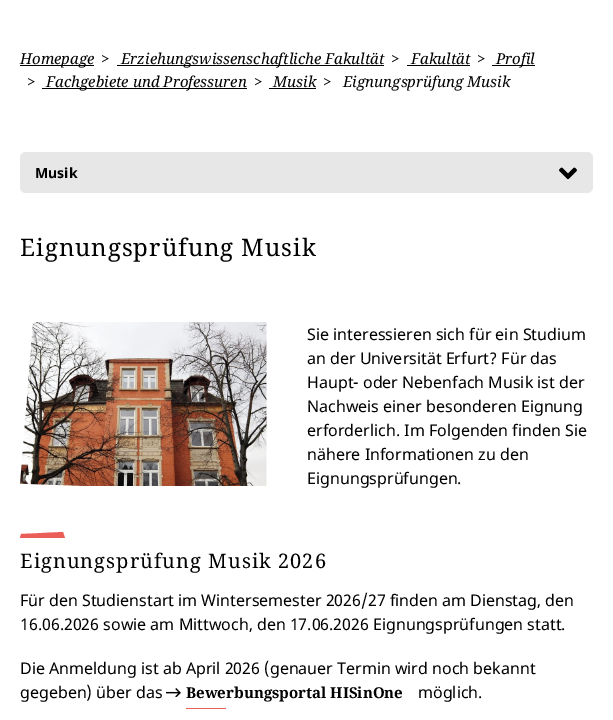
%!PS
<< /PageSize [613 720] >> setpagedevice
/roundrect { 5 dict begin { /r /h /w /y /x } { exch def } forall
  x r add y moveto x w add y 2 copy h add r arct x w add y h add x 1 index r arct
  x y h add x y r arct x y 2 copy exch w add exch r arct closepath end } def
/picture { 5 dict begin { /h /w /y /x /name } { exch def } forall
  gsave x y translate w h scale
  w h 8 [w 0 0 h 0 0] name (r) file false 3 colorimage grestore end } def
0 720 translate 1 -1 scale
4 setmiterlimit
1 setgray
0 0 613 720 rectfill
0 setgray
20 65 74 1 rectfill
/NotoSerif-Italic [15 0 0 -15 0 0] selectfont
20 64 moveto (Homepage) show
101 64 moveto (>) show
117 65 267 1 rectfill
121 64 moveto (Erziehungswissenschaftliche Fakultät) show
391 64 moveto (>) show
411 64 moveto (Fakultät) show
407 65 63 1 rectfill
477 64 moveto (>) show
492 65 43 1 rectfill
496 64 moveto (Profil) show
27 87 moveto (>) show
42 88 205 1 rectfill
46 87 moveto (Fachgebiete und Professuren) show
254 87 moveto (>) show
273 87 moveto (Musik) show
269 88 47 1 rectfill
323 87 moveto (>) show
343 87 moveto (Eignungsprüfung Musik) show
0.91 0.906 0.91 setrgbcolor
20 152 573 41 6 roundrect fill
/NotoSans-Bold [14 0 0 -14 0 0] selectfont
0 setgray
35 178 moveto (Musik) show
(img1.rgb) 559 167 18 13 picture
/NotoSerif-Regular [24 0 0 -24 0 0] selectfont
20 256 moveto 1 0 (Eignungsprüfung Musik) ashow
(img2.rgb) 20 322 247 164 picture
/NotoSans-Regular [16 0 0 -16 0 0] selectfont
307 340 moveto (Sie interessieren sich für ein Studium) show
307 364 moveto (an der Universität Erfurt? Für das) show
307 388 moveto (Haupt- oder Nebenfach Musik ist der) show
307 412 moveto (Nachweis einer besonderen Eignung) show
307 436 moveto (erforderlich. Im Folgenden finden Sie) show
307 460 moveto (nähere Informationen zu den) show
307 484 moveto (Eignungsprüfungen.) show
0.922 0.369 0.341 setrgbcolor
newpath 21 534 moveto 63 532 lineto 65 538 lineto 20 538 lineto closepath fill
/NotoSerif-Regular [20 0 0 -20 0 0] selectfont
0 setgray
20 568 moveto 1.05 0 (Eignungsprüfung Musik 2026) ashow
/NotoSans-Regular [16 0 0 -16 0 0] selectfont
20 606 moveto (Für den Studienstart im Wintersemester 2026/27 finden am Dienstag, den) show
20 630 moveto (16.06.2026 sowie am Mittwoch, den 17.06.2026 Eignungsprüfungen statt.) show
20 674 moveto (Die Anmeldung ist ab April 2026 \(genauer Termin wird noch bekannt) show
20 698 moveto (gegeben\) über das) show
(img3.rgb) 166 688 15 9 picture
/NotoSerif-Bold [15 0 0 -15 0 0] selectfont
186 698 moveto (Bewerbungsportal HISinOne) show
0.922 0.369 0.341 setrgbcolor
186 708 40 1 rectfill
/NotoSans-Regular [16 0 0 -16 0 0] selectfont
0 setgray
418 698 moveto (möglich.) show
showpage
